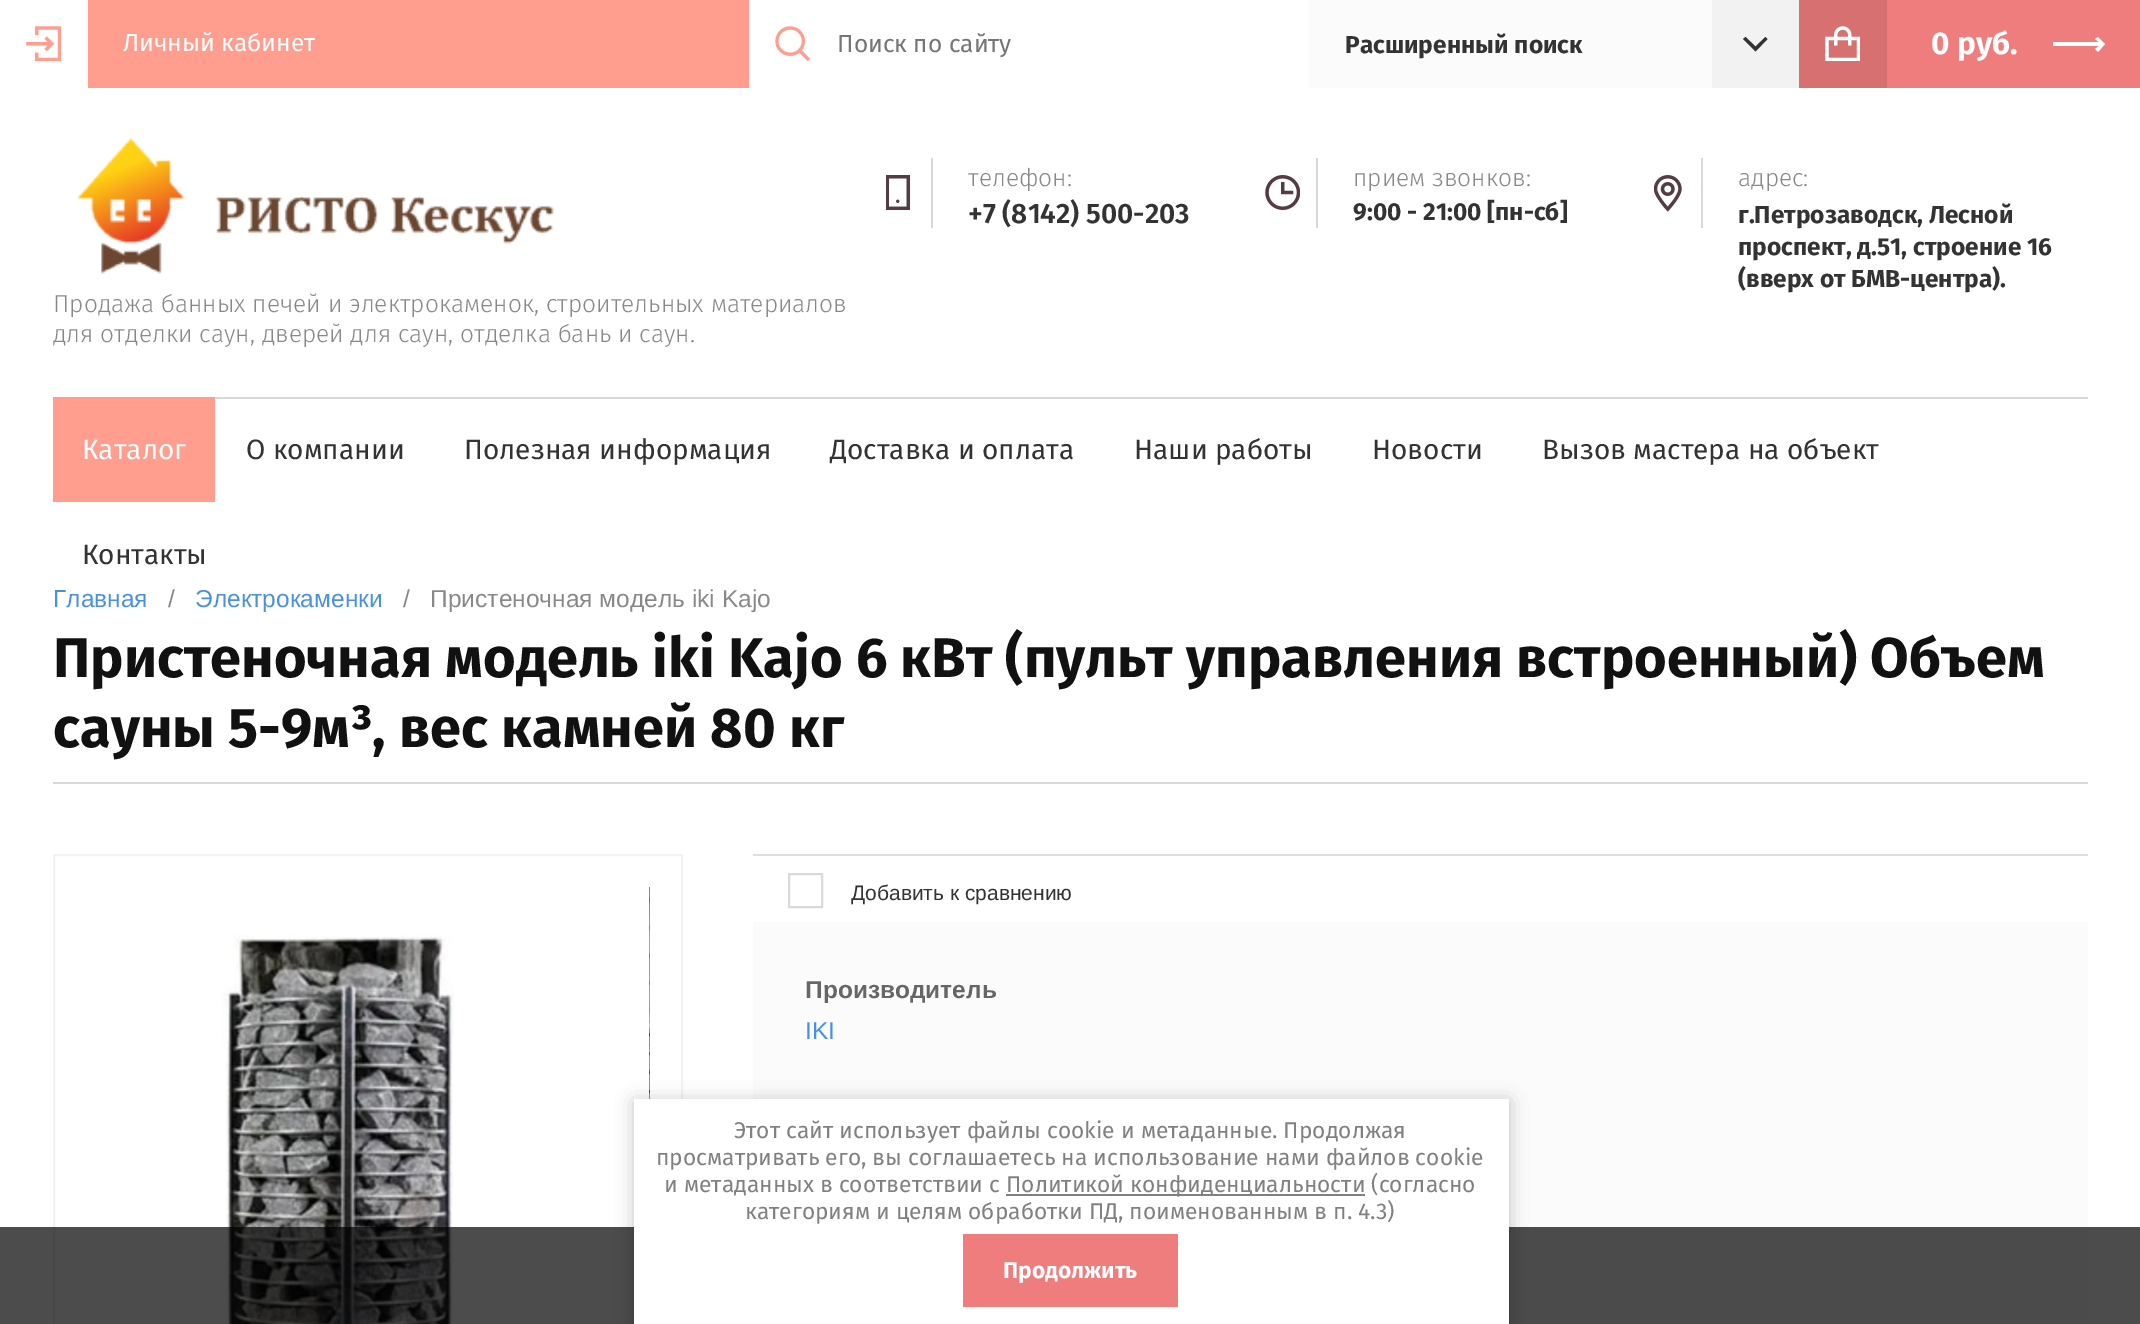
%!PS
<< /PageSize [2140 1324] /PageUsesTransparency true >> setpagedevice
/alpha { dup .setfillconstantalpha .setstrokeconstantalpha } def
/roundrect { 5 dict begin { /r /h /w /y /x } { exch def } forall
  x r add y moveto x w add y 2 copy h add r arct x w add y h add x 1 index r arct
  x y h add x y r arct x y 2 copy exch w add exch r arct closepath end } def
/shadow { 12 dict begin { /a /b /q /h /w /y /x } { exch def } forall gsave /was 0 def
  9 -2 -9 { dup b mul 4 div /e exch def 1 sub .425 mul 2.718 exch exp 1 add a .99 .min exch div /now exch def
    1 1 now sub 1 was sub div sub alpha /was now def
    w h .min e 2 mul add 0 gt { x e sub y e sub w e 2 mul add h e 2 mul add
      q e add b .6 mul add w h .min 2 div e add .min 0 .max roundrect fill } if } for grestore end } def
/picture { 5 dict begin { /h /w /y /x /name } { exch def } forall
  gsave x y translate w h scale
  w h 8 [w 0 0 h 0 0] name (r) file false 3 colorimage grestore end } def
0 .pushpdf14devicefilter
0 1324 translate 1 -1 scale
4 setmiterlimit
1 setgray
0 0 2140 1324 rectfill
1 0.62 0.557 setrgbcolor
88 0 661 88 rectfill
(img1.rgb) 26 26 35 35 picture
/FiraSans-Regular [24.5 0 0 -24.5 0 0] selectfont
1 setgray
123 51 moveto (Личный кабинет) show
(img2.rgb) 775 26 36 35 picture
0.459 setgray
837 52 moveto (Поиск по сайту) show
0.984 setgray
1309 0 403 88 rectfill
/FiraSans-Bold [24.5 0 0 -24.5 0 0] selectfont
0.2 setgray
1345 53 moveto (Расширенный поиск) show
0.949 setgray
1712 0 87 88 rectfill
0.2 setgray
newpath 1755.5 46.5 moveto 1745.5 37 lineto 1743 39 lineto 1755.5 51.5 lineto 1767.5 39 lineto 1765.5 37 lineto closepath fill
0.937 0.49 0.49 setrgbcolor
1887 0 253 88 rectfill
0.843 0.443 0.443 setrgbcolor
1799 0 88 88 rectfill
(img3.rgb) 1825 26 35 35 picture
/FiraSans-Bold [31.5 0 0 -31.5 0 0] selectfont
1 setgray
1931 54 moveto (0 руб.) show
newpath 2053 42 moveto 2099 42 lineto 2095 39 lineto 2098 37 lineto 2105 44 lineto 2098 52 lineto 2095 49 lineto 2099 46 lineto 2053 46 lineto closepath fill
(img4.rgb) 886 175 24 35 picture
0.847 setgray
931 158 2 70 rectfill
/FiraSans-Light [24.5 0 0 -24.5 0 0] selectfont
0.533 setgray
968 186 moveto (телефон:) show
/FiraSans-SemiBold [28 0 0 -28 0 0] selectfont
0.2 setgray
968 223 moveto (+7 \(8142\) 500-203) show
(img5.rgb) 1265 175 35 35 picture
0.847 setgray
1316 158 2 70 rectfill
/FiraSans-Light [24.5 0 0 -24.5 0 0] selectfont
0.533 setgray
1353 186 moveto (прием звонков:) show
/FiraSans-Bold [24.5 0 0 -24.5 0 0] selectfont
0.2 setgray
1353 220 moveto (9:00 - 21:00 [пн-сб]) show
(img6.rgb) 1654 175 28 37 picture
0.847 setgray
1701 158 2 70 rectfill
/FiraSans-Light [24.5 0 0 -24.5 0 0] selectfont
0.533 setgray
1738 186 moveto (адрес:) show
/FiraSans-Bold [24.5 0 0 -24.5 0 0] selectfont
0.2 setgray
1738 223 moveto (г.Петрозаводск, Лесной) show
1738 255 moveto (проспект, д.51, строение 16) show
1738 287 moveto (\(вверх от БМВ-центра\).) show
(img7.rgb) 76 137 478 137 picture
/FiraSans-Light [24.5 0 0 -24.5 0 0] selectfont
0.533 setgray
53 312 moveto (Продажа банных печей и электрокаменок, строительных материалов) show
53 342 moveto (для отделки саун, дверей для саун, отделка бань и саун.) show
0.847 setgray
215 397 1873 2 rectfill
1 0.62 0.557 setrgbcolor
53 397 162 105 rectfill
/FiraSans-Regular [28 0 0 -28 0 0] selectfont
1 setgray
82 459 moveto (Каталог) show
0.2 setgray
246 459 moveto (О компании) show
464 459 moveto (Полезная информация) show
830 459 moveto (Доставка и оплата) show
1134 459 moveto (Наши работы) show
1372 459 moveto (Новости) show
1542 459 moveto (Вызов мастера на объект) show
82 564 moveto (Контакты) show
0.847 setgray
53 782 2035 2 rectfill
/LiberationSans-Regular [24.5 0 0 -24.5 0 0] selectfont
0.29 0.565 0.886 setrgbcolor
53 607 moveto (Главная) show
0.533 setgray
168 607 moveto (/) show
0.29 0.565 0.886 setrgbcolor
195 607 moveto (Электрокаменки) show
0.533 setgray
403 607 moveto (/   Пристеночная модель iki Kajo) show
/FiraSans-Bold [56 0 0 -56 0 0] selectfont
0.067 setgray
53 677 moveto (Пристеночная модель iki Kajo 6 кВт \(пульт управления встроенный\) Объем) show
53 747 moveto (сауны 5-9м³, вес камней 80 кг) show
0.953 setgray
2 setlinewidth
54 855 628 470 rectstroke
(img8.rgb) 221 935 233 389 picture
(img9.rgb) 649 887 1 212 picture
0.871 setgray
753 854 1335 2 rectfill
0.851 setgray
789 874 33 33 rectstroke
/LiberationSans-Regular [21 0 0 -21 0 0] selectfont
0.2 setgray
851 900 moveto (Добавить к сравнению) show
0.984 setgray
753 922 1335 402 rectfill
/LiberationSans-Bold [24.5 0 0 -24.5 0 0] selectfont
0.4 setgray
805 998 moveto (Производитель) show
/LiberationSans-Regular [24.5 0 0 -24.5 0 0] selectfont
0.29 0.565 0.886 setrgbcolor
805 1039 moveto (IKI) show
0.7 alpha
0 setgray
0 1227 2140 97 rectfill
1 alpha
634 1101 875 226 0 9 0.23 shadow
1 setgray
634 1099 875 225 rectfill
/FiraSans-Regular [22.75 0 0 -22.75 0 0] selectfont
0.502 setgray
734 1138 moveto (Этот сайт использует файлы cookie и метаданные. Продолжая) show
656 1165 moveto (просматривать его, вы соглашаетесь на использование нами файлов cookie) show
664 1192 moveto (и метаданных в соответствии с) show
1006 1194 359 2 rectfill
1006 1192 moveto (Политикой конфиденциальности \(согласно) show
745 1219 moveto (категориям и целям обработки ПД, поименованным в п. 4.3\)) show
0.937 0.49 0.49 setrgbcolor
963 1234 215 73 rectfill
/FiraSans-Bold [22.75 0 0 -22.75 0 0] selectfont
1 setgray
1003 1278 moveto (Продолжить) show
.poppdf14devicefilter showpage
